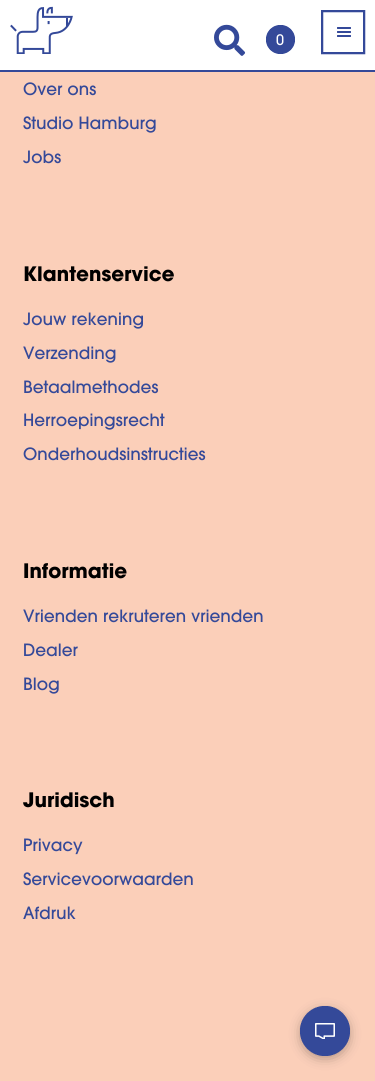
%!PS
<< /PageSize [375 1081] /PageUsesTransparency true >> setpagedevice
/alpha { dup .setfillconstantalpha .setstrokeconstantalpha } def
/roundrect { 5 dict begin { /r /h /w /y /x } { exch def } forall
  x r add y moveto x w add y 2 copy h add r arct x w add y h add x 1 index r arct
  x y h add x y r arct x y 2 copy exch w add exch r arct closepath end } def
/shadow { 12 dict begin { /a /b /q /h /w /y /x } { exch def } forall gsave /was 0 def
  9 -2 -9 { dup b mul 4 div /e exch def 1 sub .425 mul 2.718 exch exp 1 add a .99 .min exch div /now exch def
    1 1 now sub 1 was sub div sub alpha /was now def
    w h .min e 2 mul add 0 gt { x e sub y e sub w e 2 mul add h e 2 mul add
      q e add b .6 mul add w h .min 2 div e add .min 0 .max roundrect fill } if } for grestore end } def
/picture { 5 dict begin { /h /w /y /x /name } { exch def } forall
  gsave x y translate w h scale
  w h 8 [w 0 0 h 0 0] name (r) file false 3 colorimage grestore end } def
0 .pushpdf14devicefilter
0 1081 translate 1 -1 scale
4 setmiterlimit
0.984 0.812 0.725 setrgbcolor
0 0 375 1081 rectfill
1 setgray
0 0 375 70 rectfill
0.204 0.286 0.6 setrgbcolor
0 70 375 2 rectfill
(img1.rgb) 10 6 63 48 picture
2 setlinewidth
322 11 42 42 rectstroke
337 27 14 2 1 roundrect fill
337 31 14 2 1 roundrect fill
337 35 14 2 1 roundrect fill
(img2.rgb) 214 24 32 32 picture
newpath 280.5 39.5 14.5 0 360 arc closepath fill
(img3.rgb) 276 34 8 12 picture
(img4.rgb) 23 82 73 14 picture
(img5.rgb) 23 116 133 17 picture
(img6.rgb) 23 150 38 14 picture
(img7.rgb) 24 266 150 16 picture
(img8.rgb) 23 312 120 17 picture
(img9.rgb) 23 346 93 17 picture
(img10.rgb) 24 380 135 14 picture
(img11.rgb) 24 413 141 17 picture
(img12.rgb) 23 447 183 14 picture
(img13.rgb) 24 563 103 16 picture
(img14.rgb) 23 609 240 14 picture
(img15.rgb) 24 643 54 14 picture
(img16.rgb) 24 677 35 17 picture
(img17.rgb) 23 792 91 16 picture
(img18.rgb) 24 838 59 17 picture
(img19.rgb) 23 872 170 14 picture
(img20.rgb) 23 906 53 14 picture
0 setgray
300 1009 50 50 25 5 0.25 shadow
0.204 0.286 0.6 setrgbcolor
newpath 325 1031 25 0 360 arc closepath fill
(img21.rgb) 315 1023 20 16 picture
.poppdf14devicefilter showpage
